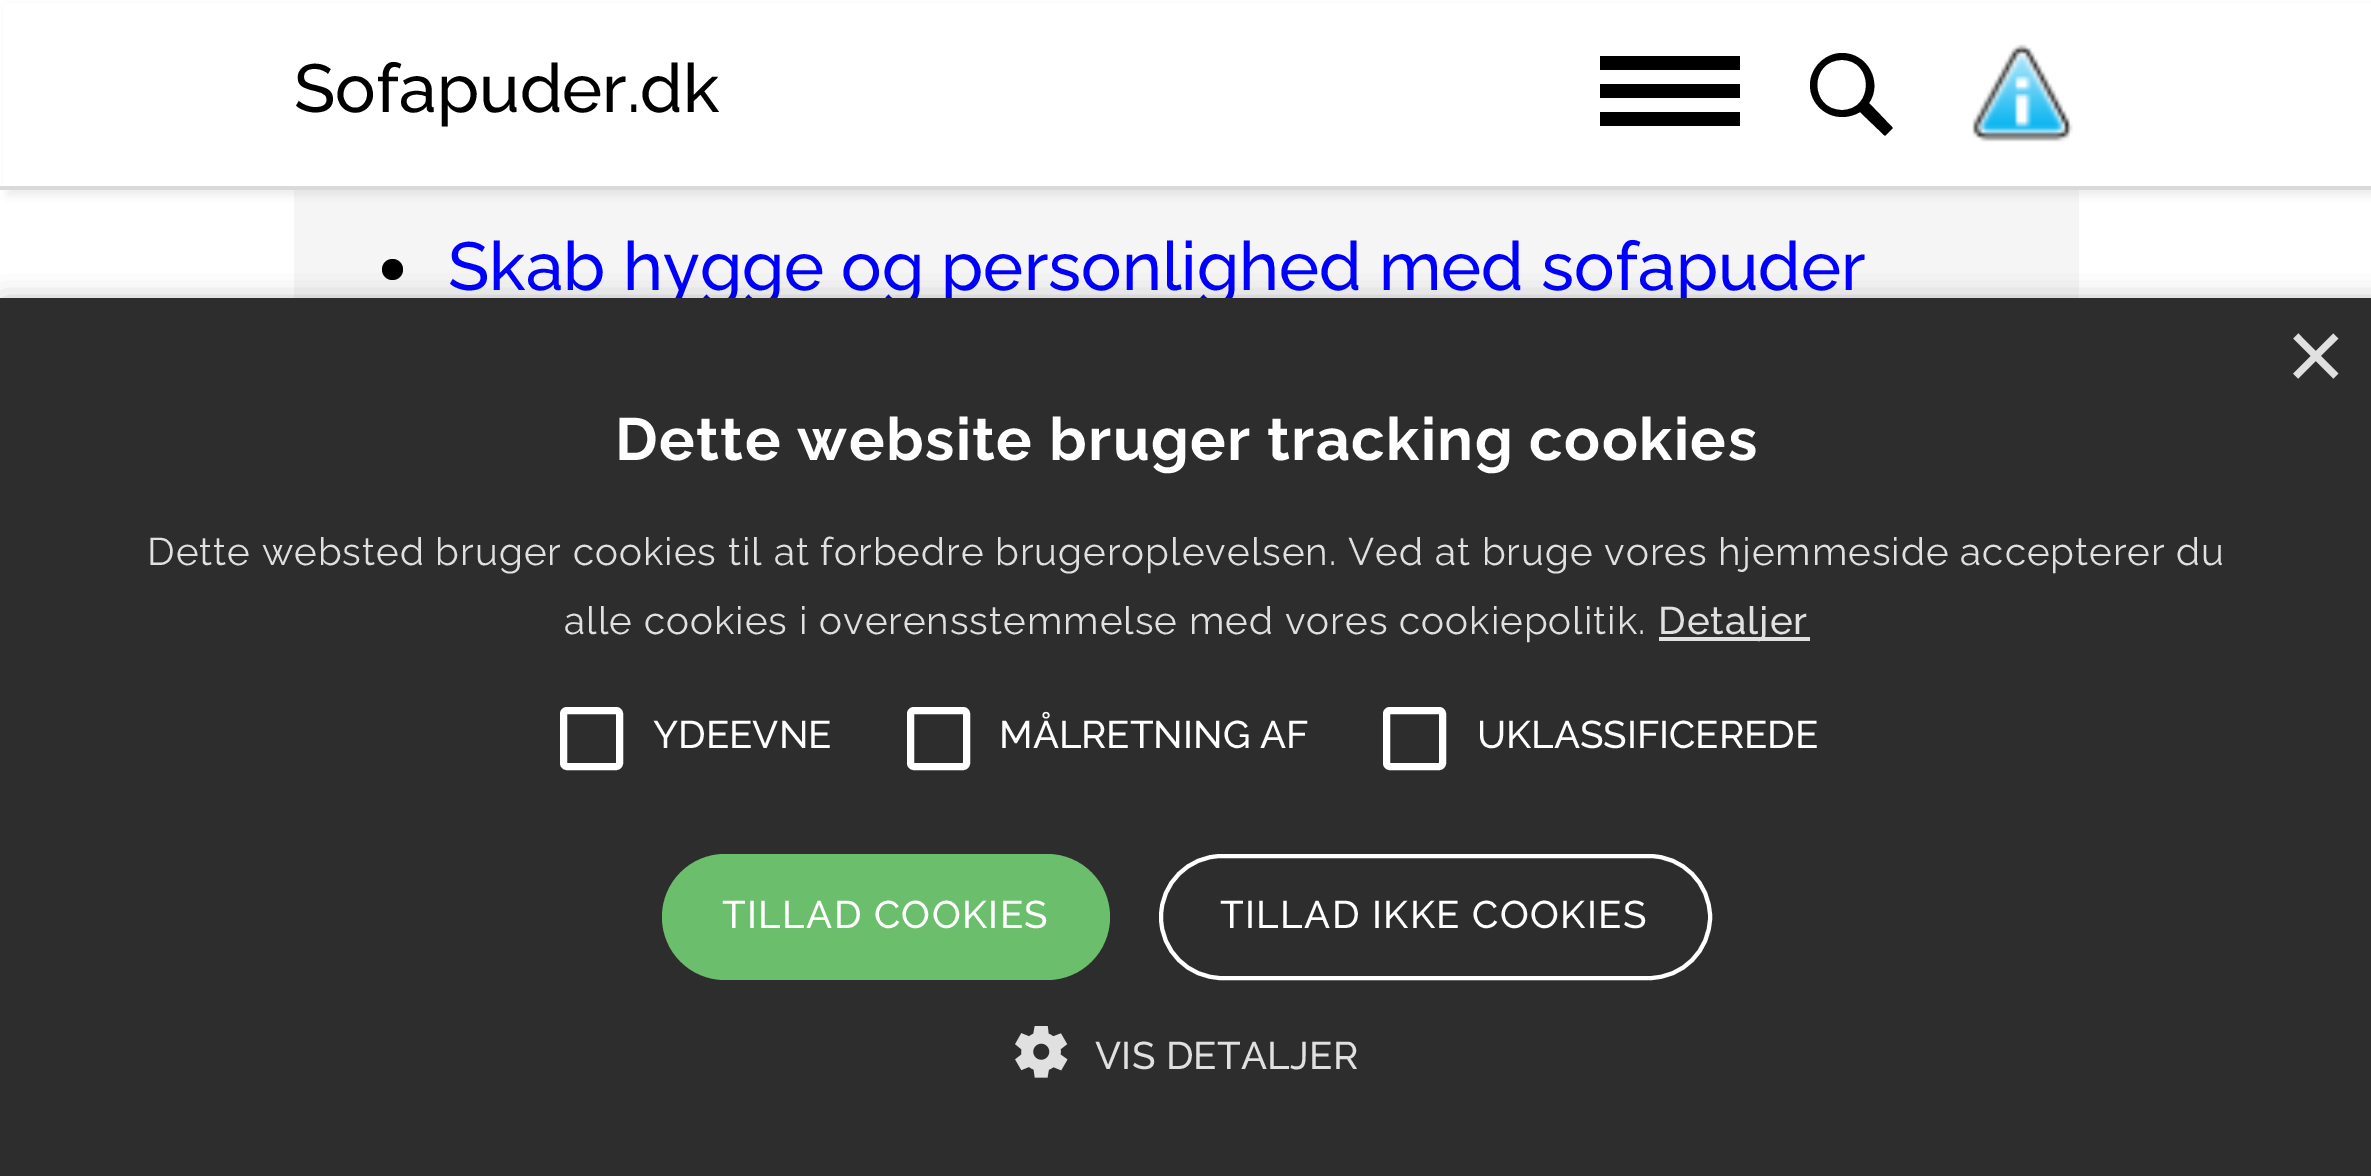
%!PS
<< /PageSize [2371 1176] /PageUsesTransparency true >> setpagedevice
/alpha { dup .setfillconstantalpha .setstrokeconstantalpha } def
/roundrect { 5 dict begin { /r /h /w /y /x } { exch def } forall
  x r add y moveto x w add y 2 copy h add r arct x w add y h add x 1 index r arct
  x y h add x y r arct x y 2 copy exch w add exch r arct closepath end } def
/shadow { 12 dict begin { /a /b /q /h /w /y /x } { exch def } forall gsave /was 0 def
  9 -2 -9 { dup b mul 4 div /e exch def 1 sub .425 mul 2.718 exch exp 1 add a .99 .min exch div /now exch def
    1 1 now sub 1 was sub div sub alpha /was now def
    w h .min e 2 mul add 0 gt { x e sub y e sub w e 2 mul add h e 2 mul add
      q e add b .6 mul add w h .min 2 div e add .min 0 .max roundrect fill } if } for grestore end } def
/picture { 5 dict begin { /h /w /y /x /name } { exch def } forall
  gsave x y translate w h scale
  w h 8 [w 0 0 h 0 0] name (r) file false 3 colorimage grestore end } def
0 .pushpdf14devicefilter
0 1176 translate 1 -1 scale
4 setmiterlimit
1 setgray
0 0 2371 1176 rectfill
0.961 setgray
294 190 1785 108 rectfill
0.671 setgray
7 7 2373 189 0 3.5 0.2 shadow
1 setgray
3 3 2368 183 rectfill
0.851 setgray
0 186 2371 4 rectfill
/Raleway-Thin [67.75 0 0 -67.75 0 0] selectfont
0 setgray
294 112 moveto (Sofapuder.dk) show
1600 56 140 14 rectfill
1600 84 140 14 rectfill
1600 112 140 14 rectfill
newpath 1842 53 moveto 1825 53 1810 68 1810 85 curveto 1810 103 1825 117 1842 117 curveto 1849 117 1855 115 1860 112 curveto 1884 135 lineto 1885 136 1885 136 1886 135 curveto 1892 129 lineto 1893 128 1893 128 1892 127 curveto 1869 103 lineto 1883 83 1868 53 1842 53 curveto closepath 1842 110 moveto 1809 110 1809 60 1842 60 curveto 1874 60 1874 110 1842 110 curveto closepath fill
(img1.rgb) 1972 44 101 98 picture
newpath 392.5 269.5 10.5 0 360 arc closepath fill
0 0 1 setrgbcolor
448 290 moveto (Skab hygge og personlighed med sofapuder) show
0 setgray
4 305 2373 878 0 14 0.35 shadow
0.176 setgray
0 298 2371 878 rectfill
/LiberationSans-Regular [102 0 0 -102 0 0] selectfont
0.878 setgray
2286 390 moveto (×) show
/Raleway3-Thin [59.5 0 0 -59.5 0 0] selectfont
1 setgray
615 460 moveto 1.4 0 (Dette website bruger tracking cookies) ashow
/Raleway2-Thin [38.5 0 0 -38.5 0 0] selectfont
0.878 setgray
147 565 moveto 1.05 0 (Dette websted bruger cookies til at forbedre brugeroplevelsen. Ved at bruge vores hjemmeside accepterer du) ashow
564 634 moveto 1.05 0 (alle cookies i overensstemmelse med vores cookiepolitik.) ashow
1659 637 151 4 rectfill
/Raleway-Thin [38.5 0 0 -38.5 0 0] selectfont
1658 634 moveto 1.05 0 (Detaljer) ashow
1 setgray
7 setlinewidth
563.5 710.5 56 56 3.5 roundrect stroke
653 748 moveto (YDEEVNE) show
910.5 710.5 56 56 3.5 roundrect stroke
999 748 moveto (MÅLRETNING AF) show
1386.5 710.5 56 56 3.5 roundrect stroke
1477 748 moveto (UKLASSIFICEREDE) show
0.42 0.745 0.42 setrgbcolor
662 854 448 126 63 roundrect fill
1 setgray
722 928 moveto 1.4 0 (TILLAD COOKIES) ashow
4 setlinewidth
1161 856 549 122 61 roundrect stroke
1220 928 moveto 1.4 0 (TILLAD IKKE COOKIES) ashow
(img2.rgb) 1015 1026 53 52 picture
0.878 setgray
1095 1069 moveto 0.3 0 (VIS DETALJER) ashow
.poppdf14devicefilter showpage
